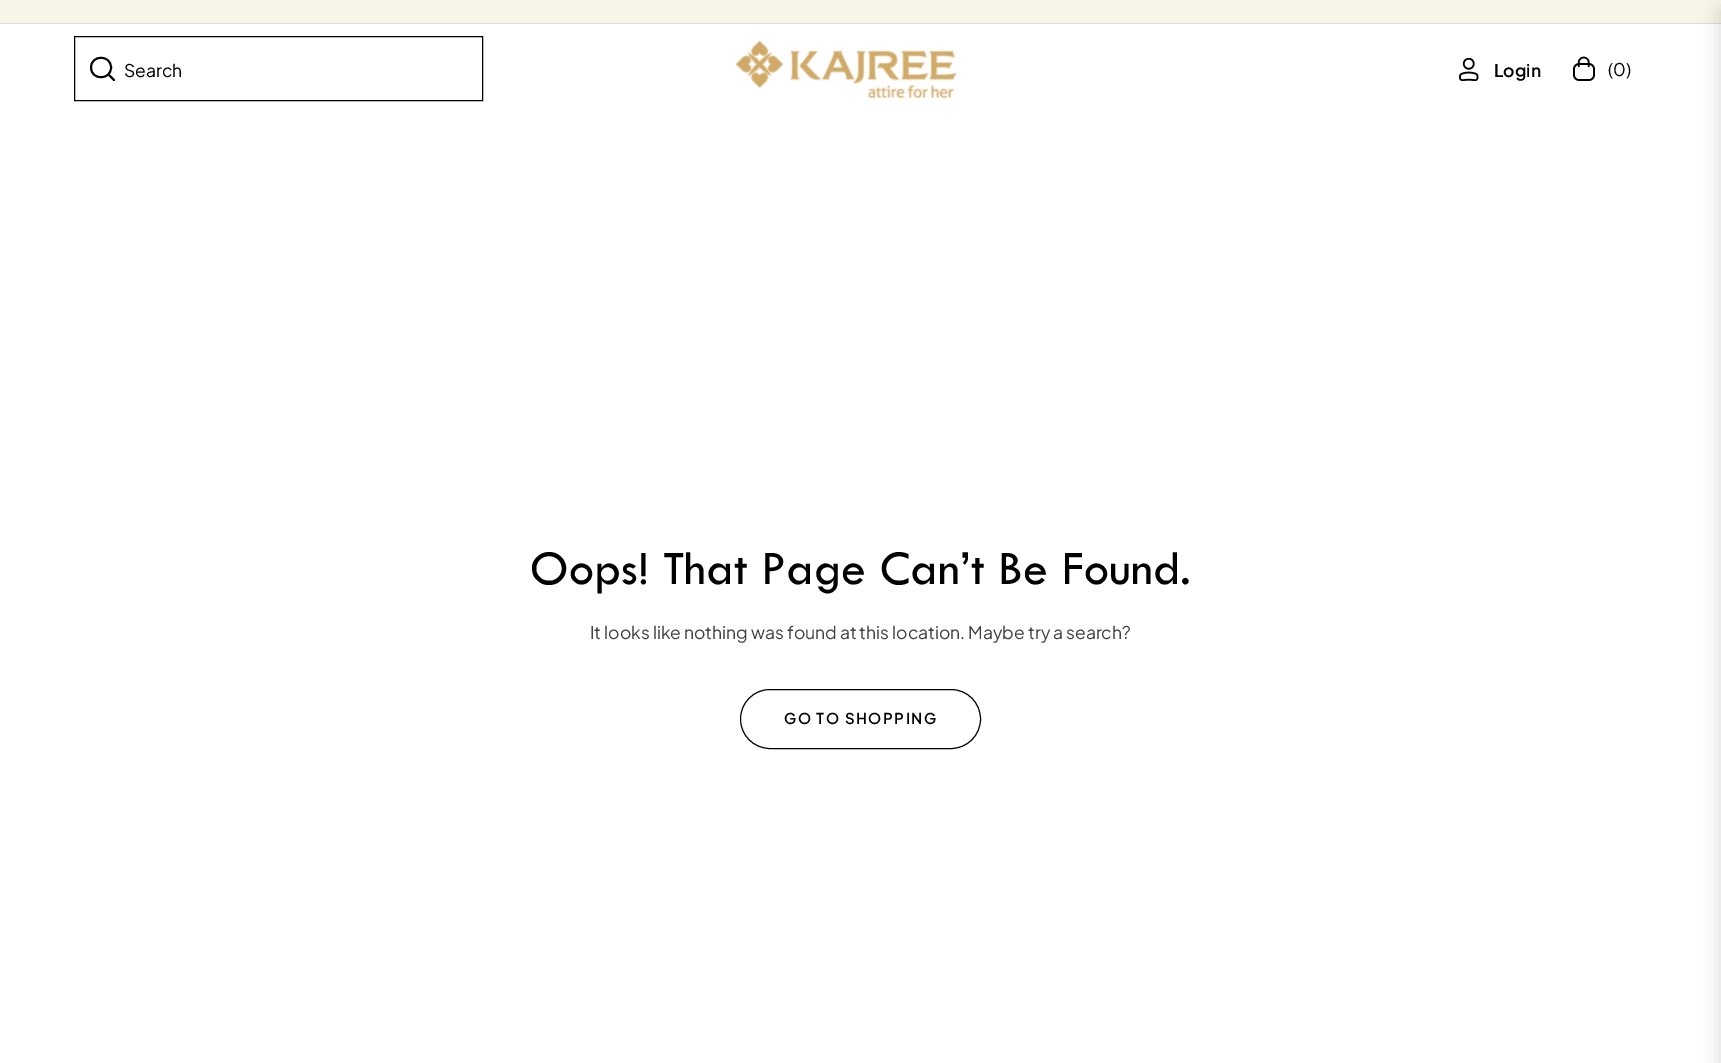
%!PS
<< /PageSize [1721 1063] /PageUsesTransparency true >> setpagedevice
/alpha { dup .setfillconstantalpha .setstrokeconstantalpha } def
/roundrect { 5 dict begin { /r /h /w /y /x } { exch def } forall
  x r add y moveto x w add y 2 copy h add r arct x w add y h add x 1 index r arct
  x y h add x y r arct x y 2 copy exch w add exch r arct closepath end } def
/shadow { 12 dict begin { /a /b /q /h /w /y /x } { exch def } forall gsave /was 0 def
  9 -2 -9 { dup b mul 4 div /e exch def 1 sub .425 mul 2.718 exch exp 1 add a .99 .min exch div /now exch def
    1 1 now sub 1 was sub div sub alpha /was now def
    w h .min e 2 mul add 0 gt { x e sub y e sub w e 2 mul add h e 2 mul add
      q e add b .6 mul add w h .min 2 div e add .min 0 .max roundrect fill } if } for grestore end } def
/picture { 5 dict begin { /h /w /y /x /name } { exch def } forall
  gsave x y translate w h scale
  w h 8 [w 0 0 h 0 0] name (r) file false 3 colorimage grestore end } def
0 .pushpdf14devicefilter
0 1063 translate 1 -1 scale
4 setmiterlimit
1 setgray
0 0 1721 1063 rectfill
0.976 0.957 0.914 setrgbcolor
0 0 1721 23 rectfill
0.875 0.863 0.835 setrgbcolor
0 23 1721 1 rectfill
0 setgray
74.5 36.5 408 64 rectstroke
1.9 setlinewidth
1 setlinecap
1 setlinejoin
newpath 114 80 moveto 108.5 74.5 lineto 111 67.5 moveto 111 80.5 91 80.5 91 67.5 curveto 91 54.5 111 54.5 111 67.5 curveto closepath stroke
/PlusJakartaSans-Regular [17.5 0 0 -17.5 0 0] selectfont
124 77 moveto (Search) show
(img1.rgb) 735 40 222 59 picture
(img2.rgb) 1459 58 20 23 picture
/PlusJakartaSans-SemiBold [17.5 0 0 -17.5 0 0] selectfont
1494 77 moveto (Login) show
(img3.rgb) 1573 56 22 25 picture
/PlusJakartaSans-Regular [17.5 0 0 -17.5 0 0] selectfont
1608 76 moveto (\(0\)) show
1721 10 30 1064 0 10 0.15 shadow
/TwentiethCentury-Medium [50 0 0 -50 0 0] selectfont
530 584 moveto (Oops! That Page Can’t Be Found.) show
/PlusJakartaSans-Regular [17.5 0 0 -17.5 0 0] selectfont
0.255 setgray
590 639 moveto (It looks like nothing was found at this location. Maybe try a search?) show
0 setgray
1 setlinewidth
0 setlinecap
0 setlinejoin
740.5 689.5 240 59 29.5 roundrect stroke
/PlusJakartaSans-SemiBold [15 0 0 -15 0 0] selectfont
784 724 moveto 1.5 0 (GO TO SHOPPING) ashow
.poppdf14devicefilter showpage
